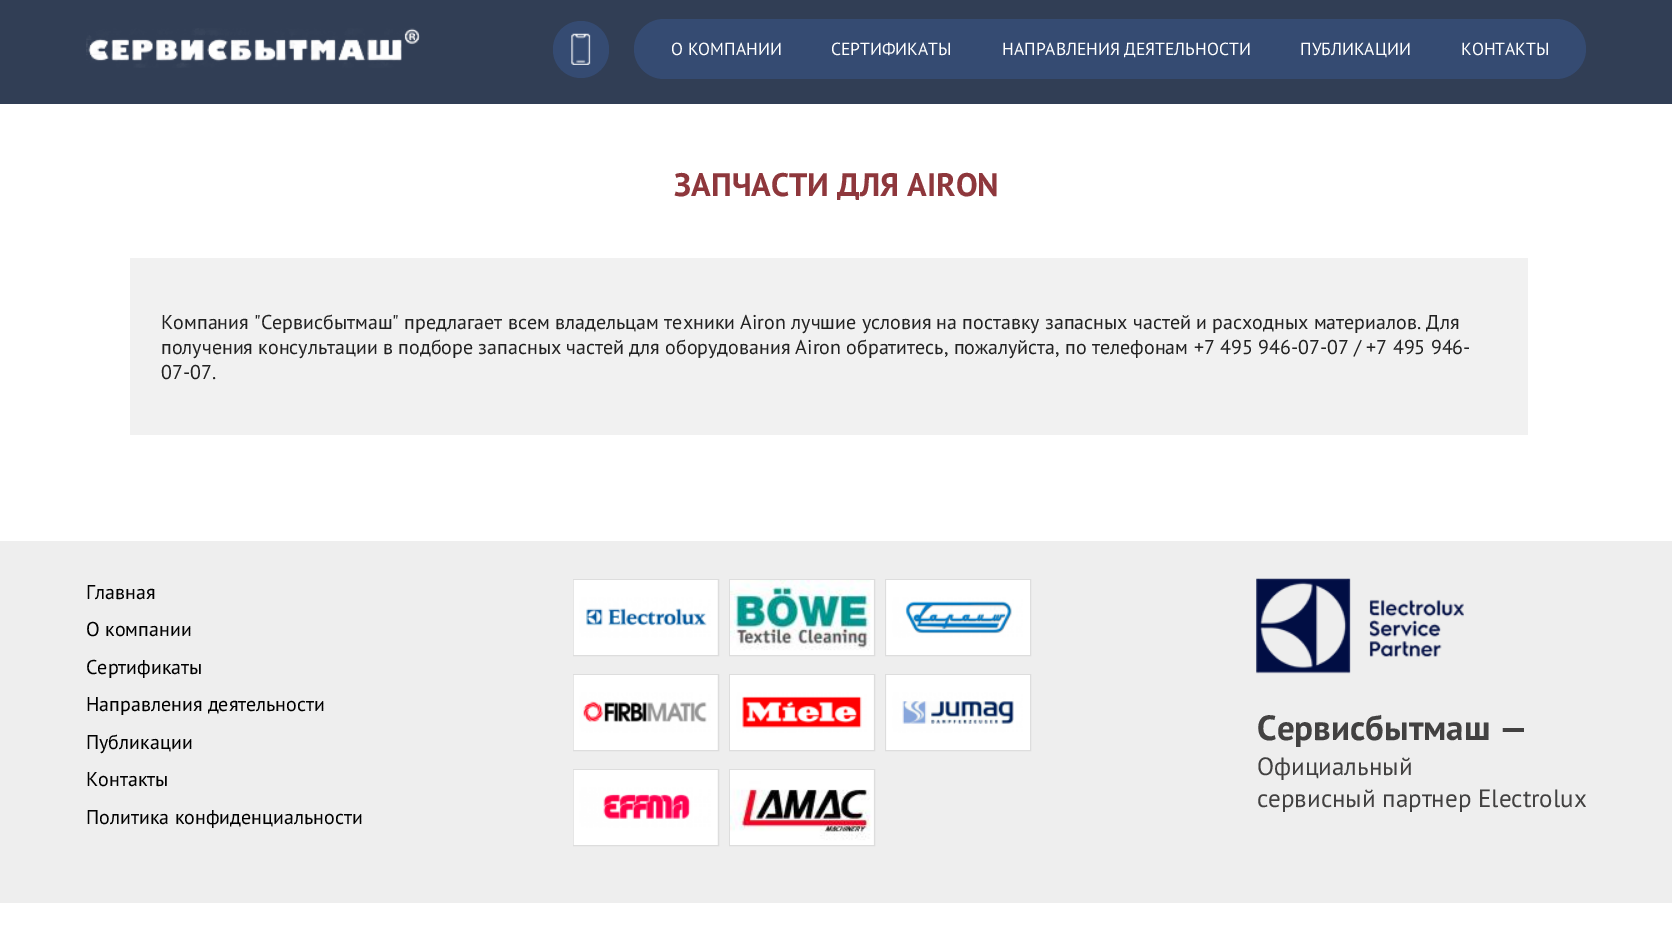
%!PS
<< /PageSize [1672 941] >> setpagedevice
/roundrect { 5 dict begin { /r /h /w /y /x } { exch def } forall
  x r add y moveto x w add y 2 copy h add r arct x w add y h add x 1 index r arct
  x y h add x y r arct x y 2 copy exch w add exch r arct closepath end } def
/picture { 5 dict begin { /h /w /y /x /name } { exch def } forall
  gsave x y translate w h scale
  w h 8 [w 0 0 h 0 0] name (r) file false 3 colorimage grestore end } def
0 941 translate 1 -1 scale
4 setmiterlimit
1 setgray
0 0 1672 941 rectfill
0.192 0.243 0.333 setrgbcolor
0 0 1672 104 rectfill
(img1.rgb) 86 28 334 40 picture
0.208 0.294 0.447 setrgbcolor
553 21 56 57 28 roundrect fill
(img2.rgb) 571 33 20 32 picture
634 19 952 60 30 roundrect fill
/PTSans-Regular [17.5 0 0 -17.5 0 0] selectfont
1 setgray
671 55 moveto (О КОМПАНИИ) show
831 55 moveto (СЕРТИФИКАТЫ) show
1002 55 moveto (НАПРАВЛЕНИЯ ДЕЯТЕЛЬНОСТИ) show
1300 55 moveto (ПУБЛИКАЦИИ) show
1461 55 moveto (КОНТАКТЫ) show
/PTSans-Bold [32.5 0 0 -32.5 0 0] selectfont
0.557 0.216 0.235 setrgbcolor
674 196 moveto (ЗАПЧАСТИ ДЛЯ AIRON) show
0.945 setgray
130 258 1398 177 rectfill
/PTSans-Regular [20 0 0 -20 0 0] selectfont
0.133 setgray
161 329 moveto (Компания "Сервисбытмаш" предлагает всем владельцам техники Airon лучшие условия на поставку запасных частей и расходных материалов. Для) show
161 354 moveto (получения консультации в подборе запасных частей для оборудования Airon обратитесь, пожалуйста, по телефонам +7 495 946-07-07 / +7 495 946-) show
161 379 moveto (07-07.) show
0.933 setgray
0 541 1672 362 rectfill
0 setgray
86 599 moveto (Главная) show
86 636 moveto (О компании) show
86 674 moveto (Сертификаты) show
86 711 moveto (Направления деятельности) show
86 749 moveto (Публикации) show
86 786 moveto (Контакты) show
86 824 moveto (Политика конфиденциальности) show
0.867 setgray
573.5 579.5 145 76 rectstroke
(img3.rgb) 573 580 145 75 picture
729.5 579.5 145 76 rectstroke
(img4.rgb) 730 580 144 75 picture
885.5 579.5 145 76 rectstroke
(img5.rgb) 886 580 144 75 picture
573.5 674.5 145 76 rectstroke
(img6.rgb) 573 675 145 75 picture
729.5 674.5 145 76 rectstroke
(img7.rgb) 730 675 144 75 picture
885.5 674.5 145 76 rectstroke
(img8.rgb) 886 675 144 75 picture
573.5 769.5 145 76 rectstroke
(img9.rgb) 573 770 145 75 picture
729.5 769.5 145 76 rectstroke
(img10.rgb) 730 770 144 75 picture
(img11.rgb) 1256 578 208 96 picture
/PTSans-Bold [35 0 0 -35 0 0] selectfont
0.259 0.255 0.255 setrgbcolor
1257 740 moveto (Сервисбытмаш —) show
/PTSans-Regular [25 0 0 -25 0 0] selectfont
1257 775 moveto (Официальный) show
1257 807 moveto (сервисный партнер Electrolux) show
showpage
